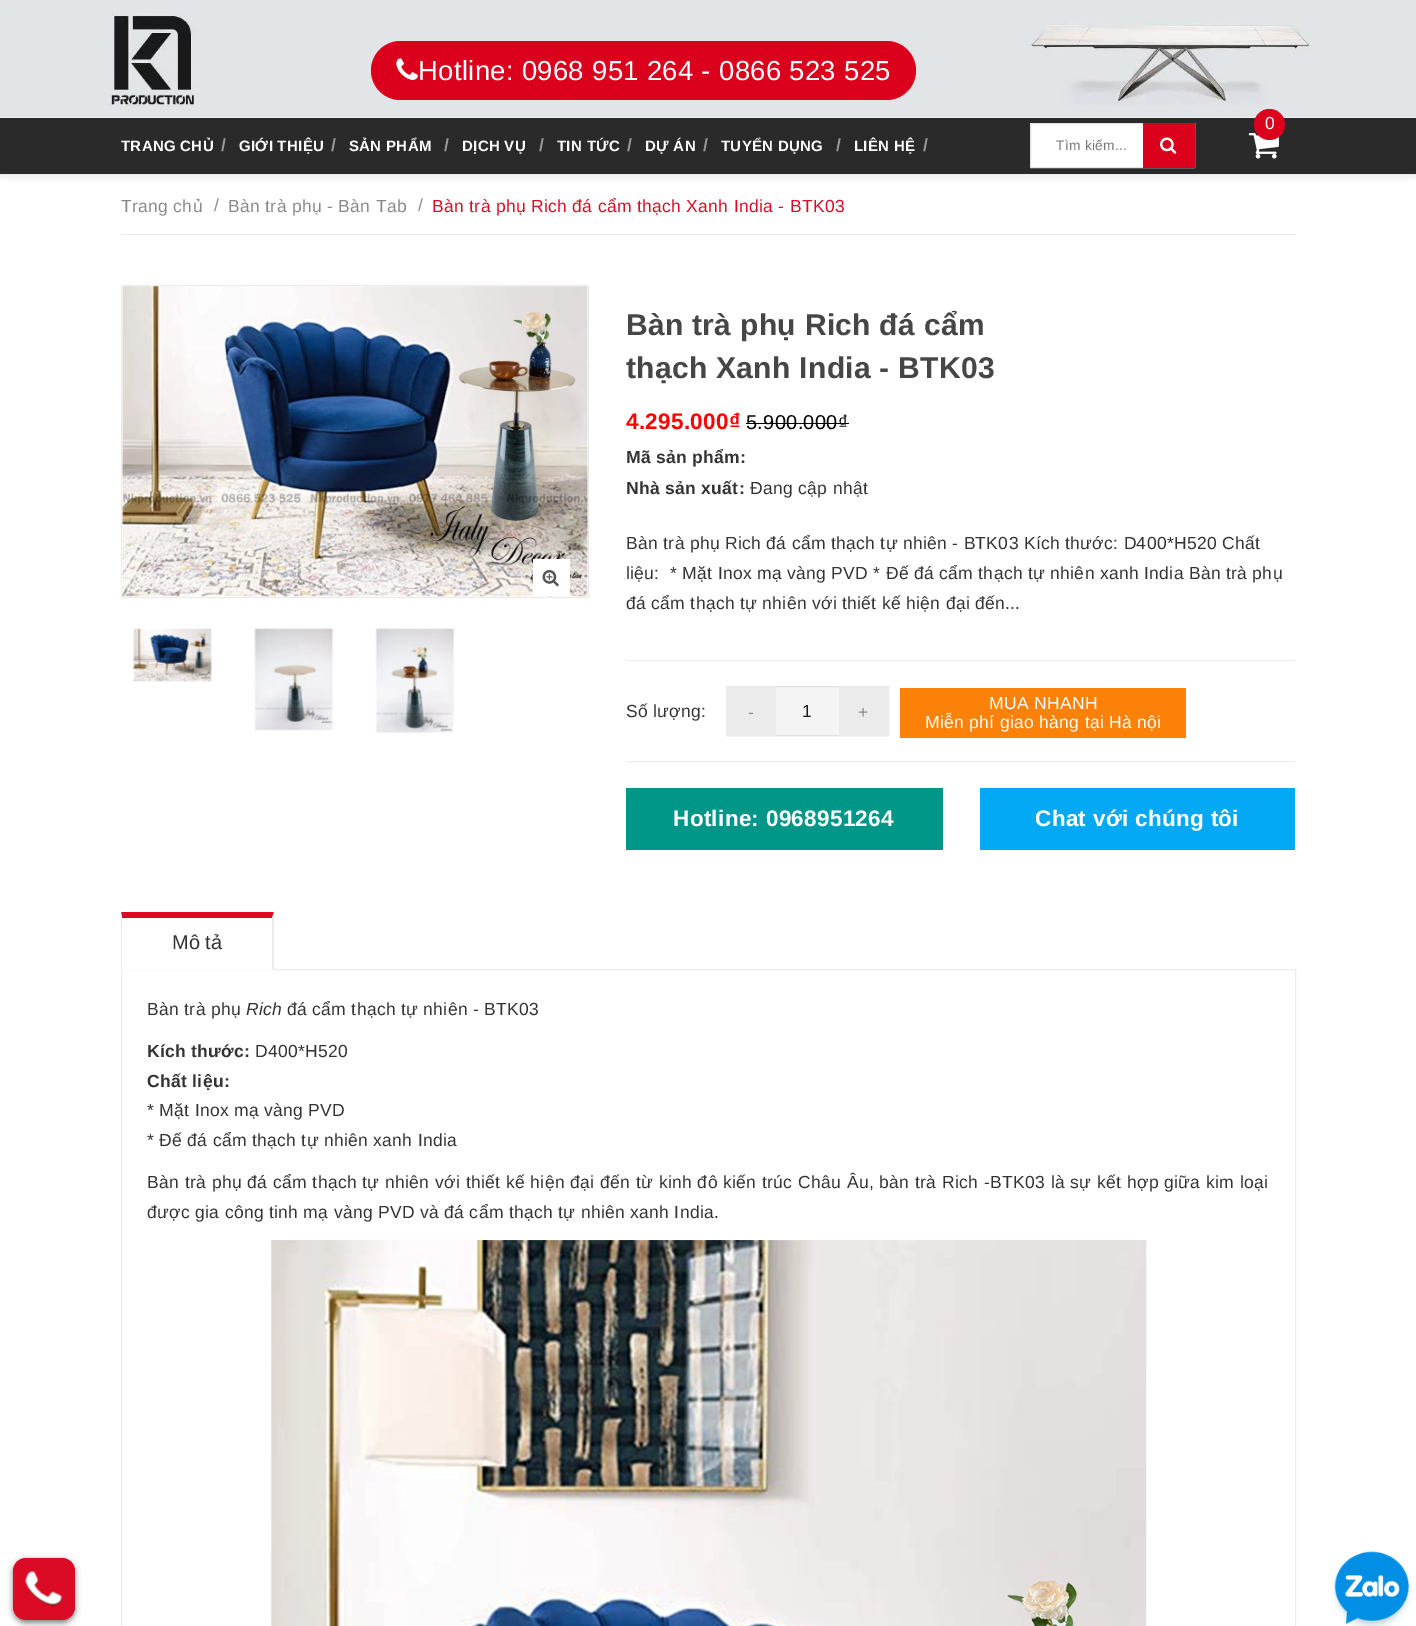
%!PS
<< /PageSize [1416 1626] /PageUsesTransparency true >> setpagedevice
/alpha { dup .setfillconstantalpha .setstrokeconstantalpha } def
/roundrect { 5 dict begin { /r /h /w /y /x } { exch def } forall
  x r add y moveto x w add y 2 copy h add r arct x w add y h add x 1 index r arct
  x y h add x y r arct x y 2 copy exch w add exch r arct closepath end } def
/shadow { 12 dict begin { /a /b /q /h /w /y /x } { exch def } forall gsave /was 0 def
  9 -2 -9 { dup b mul 4 div /e exch def 1 sub .425 mul 2.718 exch exp 1 add a .99 .min exch div /now exch def
    1 1 now sub 1 was sub div sub alpha /was now def
    w h .min e 2 mul add 0 gt { x e sub y e sub w e 2 mul add h e 2 mul add
      q e add b .6 mul add w h .min 2 div e add .min 0 .max roundrect fill } if } for grestore end } def
/picture { 5 dict begin { /h /w /y /x /name } { exch def } forall
  gsave x y translate w h scale
  w h 8 [w 0 0 h 0 0] name (r) file false 3 colorimage grestore end } def
0 .pushpdf14devicefilter
0 1626 translate 1 -1 scale
4 setmiterlimit
1 setgray
0 0 1416 1626 rectfill
0.902 setgray
0 3 1416 173 0 4.5 1 shadow
(img1.rgb) 0 0 1416 118 picture
0.859 0.004 0.11 setrgbcolor
371 41 545 59 29.5 roundrect fill
(img2.rgb) 396 58 22 22 picture
/LiberationSans-Regular [27.5 0 0 -27.5 0 0] selectfont
1 setgray
418 80 moveto 0.31 0 (Hotline: 0968 951 264 - 0866 523 525) ashow
0.165 setgray
0 118 1416 56 rectfill
(img3.rgb) 1248 133 31 26 picture
0.859 0.004 0.11 setrgbcolor
newpath 1269.5 124.5 15.5 0 360 arc closepath fill
/LiberationSans-Regular [17.5 0 0 -17.5 0 0] selectfont
1 setgray
1265 129 moveto 0.31 0 (0) ashow
/LiberationSans-Bold [15 0 0 -15 0 0] selectfont
121 151 moveto 0.31 0 (TRANG CHỦ) ashow
/LiberationSans-Bold [17.5 0 0 -17.5 0 0] selectfont
0.596 setgray
221 151 moveto 0.31 0 (/) ashow
/LiberationSans-Bold [15 0 0 -15 0 0] selectfont
1 setgray
239 151 moveto 0.31 0 (GIỚI THIỆU) ashow
/LiberationSans-Bold [17.5 0 0 -17.5 0 0] selectfont
0.596 setgray
331 151 moveto 0.31 0 (/) ashow
/LiberationSans-Bold [15 0 0 -15 0 0] selectfont
1 setgray
349 151 moveto 0.31 0 (SẢN PHẨM) ashow
/LiberationSans-Bold [17.5 0 0 -17.5 0 0] selectfont
0.596 setgray
444 151 moveto 0.31 0 (/) ashow
/LiberationSans-Bold [15 0 0 -15 0 0] selectfont
1 setgray
462 151 moveto 0.31 0 (DỊCH VỤ) ashow
/LiberationSans-Bold [17.5 0 0 -17.5 0 0] selectfont
0.596 setgray
539 151 moveto 0.31 0 (/) ashow
/LiberationSans-Bold [15 0 0 -15 0 0] selectfont
1 setgray
557 151 moveto 0.31 0 (TIN TỨC) ashow
/LiberationSans-Bold [17.5 0 0 -17.5 0 0] selectfont
0.596 setgray
627 151 moveto 0.31 0 (/) ashow
/LiberationSans-Bold [15 0 0 -15 0 0] selectfont
1 setgray
645 151 moveto 0.31 0 (DỰ ÁN) ashow
/LiberationSans-Bold [17.5 0 0 -17.5 0 0] selectfont
0.596 setgray
703 151 moveto 0.31 0 (/) ashow
/LiberationSans-Bold [15 0 0 -15 0 0] selectfont
1 setgray
721 151 moveto 0.31 0 (TUYỂN DỤNG) ashow
/LiberationSans-Bold [17.5 0 0 -17.5 0 0] selectfont
0.596 setgray
836 151 moveto 0.31 0 (/) ashow
/LiberationSans-Bold [15 0 0 -15 0 0] selectfont
1 setgray
854 151 moveto 0.31 0 (LIÊN HỆ) ashow
/LiberationSans-Bold [17.5 0 0 -17.5 0 0] selectfont
0.596 setgray
923 151 moveto 0.31 0 (/) ashow
1 setgray
1031 124 112 43 rectfill
0.882 setgray
1030.5 123.5 164 44 rectstroke
/LiberationSans-Regular [13.75 0 0 -13.75 0 0] selectfont
0.459 setgray
1056 150 moveto 0.31 0 (Tìm kiếm...) ashow
0.859 0.004 0.11 setrgbcolor
1143 123 52 45 rectfill
(img4.rgb) 1160 137 17 17 picture
0.922 setgray
121 234 1175 1 rectfill
/LiberationSans-Regular [17.5 0 0 -17.5 0 0] selectfont
0.537 setgray
121 212 moveto 0.31 0 (Trang chủ) ashow
214 211 moveto 0.31 0 (/) ashow
228 212 moveto 0.31 0 (Bàn trà phụ - Bàn Tab) ashow
418 211 moveto 0.31 0 (/) ashow
0.859 0.043 0.145 setrgbcolor
432 212 moveto 0.31 0 (Bàn trà phụ Rich đá cẩm thạch Xanh India - BTK03) ashow
0.922 setgray
121.5 285.5 467 312 rectstroke
(img5.rgb) 122 286 466 311 picture
1 setgray
533 559 37 37 rectfill
(img6.rgb) 542 570 17 17 picture
(img7.rgb) 133 628 79 54 picture
(img8.rgb) 254 628 79 103 picture
(img9.rgb) 375 628 80 105 picture
/LiberationSans-Bold [30 0 0 -30 0 0] selectfont
0.275 setgray
626 335 moveto 0.3 0 (Bàn trà phụ Rich đá cẩm) ashow
626 378 moveto 0.3 0 (thạch Xanh India - BTK03) ashow
/LiberationSans-Bold [22.5 0 0 -22.5 0 0] selectfont
1 0 0 setrgbcolor
626 429 moveto 0.31 0 (4.295.000₫) ashow
/LiberationSans-Regular [20 0 0 -20 0 0] selectfont
0 setgray
746 429 moveto 0.31 0 (5.900.000₫) ashow
746 423 103 1 rectfill
/LiberationSans-Bold [17.5 0 0 -17.5 0 0] selectfont
0.2 setgray
626 463 moveto 0.31 0 (Mã sản phẩm:) ashow
626 494 moveto 0.31 0 (Nhà sản xuất:) ashow
/LiberationSans-Regular [17.5 0 0 -17.5 0 0] selectfont
750 494 moveto 0.31 0 (Đang cập nhật) ashow
626 549 moveto 0.31 0 (Bàn trà phụ Rich đá cẩm thạch tự nhiên - BTK03 Kích thước: D400*H520 Chất) ashow
626 579 moveto 0.31 0 (liệu:  * Mặt Inox mạ vàng PVD * Đế đá cẩm thạch tự nhiên xanh India Bàn trà phụ) ashow
626 609 moveto 0.31 0 (đá cẩm thạch tự nhiên với thiết kế hiện đại đến...) ashow
0.922 setgray
626 660 669 1 rectfill
626 761 669 1 rectfill
0.2 setgray
626 717 moveto 0.31 0 (Số lượng:) ashow
0.957 setgray
776 687 63 48 rectfill
0.882 setgray
726.5 686.5 162 49 rectstroke
0.922 setgray
726 686 50 50 rectfill
0.537 setgray
748 718 moveto 0.31 0 (-) ashow
0.11 setgray
802 717 moveto 0.31 0 (1) ashow
0.922 setgray
839 686 50 50 rectfill
0.537 setgray
858 718 moveto 0.31 0 (+) ashow
0.988 0.506 0.031 setrgbcolor
900 688 286 50 rectfill
1 setgray
989 709 moveto 0.31 0 (MUA NHANH) ashow
925 728 moveto 0.31 0 (Miễn phí giao hàng tại Hà nội) ashow
0 0.588 0.533 setrgbcolor
626 788 317 62 rectfill
/LiberationSans-Bold [22.5 0 0 -22.5 0 0] selectfont
1 setgray
673 826 moveto 0.31 0 (Hotline: 0968951264) ashow
0.012 0.663 0.957 setrgbcolor
980 788 315 62 rectfill
1 setgray
1035 826 moveto 0.31 0 (Chat với chúng tôi) ashow
0.859 0.043 0.145 setrgbcolor
newpath 121 912 moveto 274 912 lineto 272 918 lineto 122 918 lineto closepath fill
0.922 setgray
newpath 274 912 moveto 274 969 lineto 272 969 lineto 272 918 lineto closepath fill
newpath 121 969 moveto 121 912 lineto 122 918 lineto 122 969 lineto closepath fill
/LiberationSans-Regular [20 0 0 -20 0 0] selectfont
0.2 setgray
172 949 moveto (Mô tả) show
0.922 setgray
121.5 969.5 1174 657 rectstroke
1 setgray
123 969 150 1 rectfill
/LiberationSans-Regular [17.5 0 0 -17.5 0 0] selectfont
0.2 setgray
147 1015 moveto 0.31 0 (Bàn trà phụ) ashow
/LiberationSans-Italic [17.5 0 0 -17.5 0 0] selectfont
246 1015 moveto 0.31 0 (Rich) ashow
/LiberationSans-Regular [17.5 0 0 -17.5 0 0] selectfont
287 1015 moveto 0.31 0 (đá cẩm thạch tự nhiên - BTK03) ashow
/LiberationSans-Bold [17.5 0 0 -17.5 0 0] selectfont
147 1057 moveto 0.31 0 (Kích thước:) ashow
/LiberationSans-Regular [17.5 0 0 -17.5 0 0] selectfont
255 1057 moveto 0.31 0 (D400*H520) ashow
/LiberationSans-Bold [17.5 0 0 -17.5 0 0] selectfont
147 1087 moveto 0.31 0 (Chất liệu:) ashow
/LiberationSans-Regular [17.5 0 0 -17.5 0 0] selectfont
147 1116 moveto 0.31 0 (* Mặt Inox mạ vàng PVD) ashow
147 1146 moveto 0.31 0 (* Đế đá cẩm thạch tự nhiên xanh India) ashow
147 1188 moveto 0.4 0 32 0.31 0 (Bàn trà phụ đá cẩm thạch tự nhiên với thiết kế hiện đại đến từ kinh đô kiến trúc Châu Âu, bàn trà Rich -BTK03 là sự kết hợp giữa kim loại) awidthshow
147 1218 moveto 0.31 0 (được gia công tinh mạ vàng PVD và đá cẩm thạch tự nhiên xanh India.) ashow
(img10.rgb) 271 1240 876 386 picture
0 setgray
13 1560 62 63 13 3 0.5 shadow
0.859 0.043 0.145 setrgbcolor
13 1558 62 62 13 roundrect fill
(img11.rgb) 25 1571 38 35 picture
(img12.rgb) 1332 1551 80 75 picture
.poppdf14devicefilter showpage
